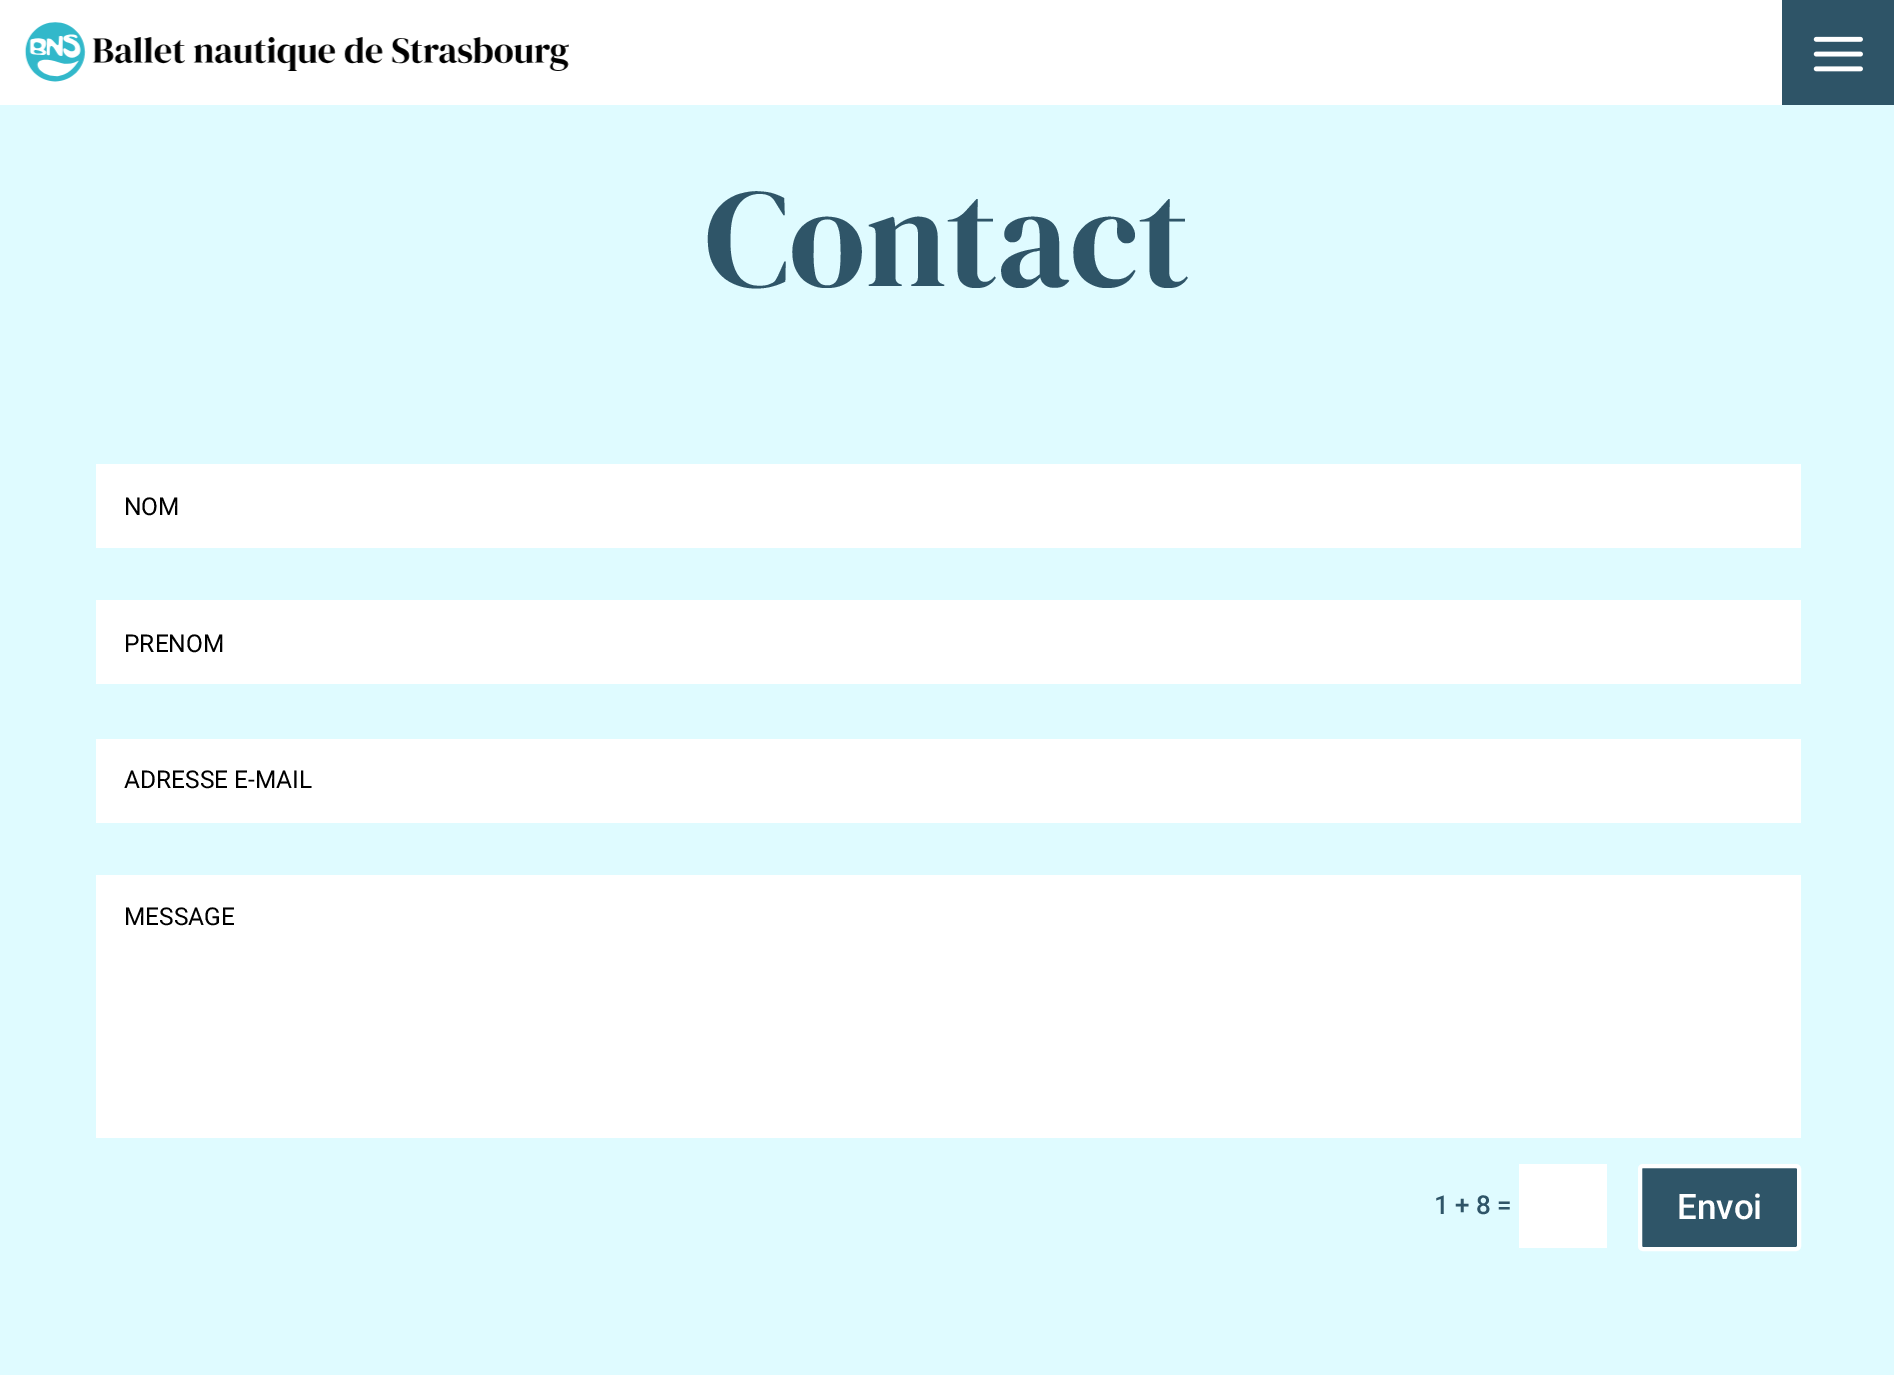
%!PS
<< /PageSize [1894 1375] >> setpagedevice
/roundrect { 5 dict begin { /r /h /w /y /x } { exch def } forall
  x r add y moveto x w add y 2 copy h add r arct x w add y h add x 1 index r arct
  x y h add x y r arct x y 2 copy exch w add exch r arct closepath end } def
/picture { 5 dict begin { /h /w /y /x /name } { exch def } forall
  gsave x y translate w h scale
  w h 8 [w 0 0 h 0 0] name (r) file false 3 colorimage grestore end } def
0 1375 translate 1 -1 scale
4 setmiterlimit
0.875 0.984 1 setrgbcolor
0 0 1894 1375 rectfill
1 setgray
0 0 1782 105 rectfill
(img1.rgb) 24 22 545 60 picture
0.18 0.329 0.404 setrgbcolor
1782 0 112 105 rectfill
(img2.rgb) 1813 36 50 36 picture
/DMSerifDisplay-Regular [140 0 0 -140 0 0] selectfont
0.184 0.333 0.408 setrgbcolor
705 286 moveto (Contact) show
1 setgray
96 464 1705 84 rectfill
/Roboto-Regular [24.5 0 0 -24.5 0 0] selectfont
0 setgray
124 515 moveto (NOM) show
1 setgray
96 600 1705 84 rectfill
0 setgray
124 652 moveto (PRENOM) show
1 setgray
96 739 1705 84 rectfill
0 setgray
124 788 moveto (ADRESSE E-MAIL) show
1 setgray
96 875 1705 263 rectfill
0 setgray
124 925 moveto (MESSAGE) show
/Roboto-Medium [26 0 0 -26 0 0] selectfont
0.184 0.333 0.408 setrgbcolor
1434 1214 moveto (1 + 8 =) show
1 setgray
1519 1164 88 84 rectfill
0.184 0.333 0.408 setrgbcolor
1640 1166 159 83 3 roundrect gsave fill grestore
1 setgray
4 setlinewidth
stroke
/Roboto-Medium [35 0 0 -35 0 0] selectfont
1677 1219 moveto (Envoi) show
showpage
